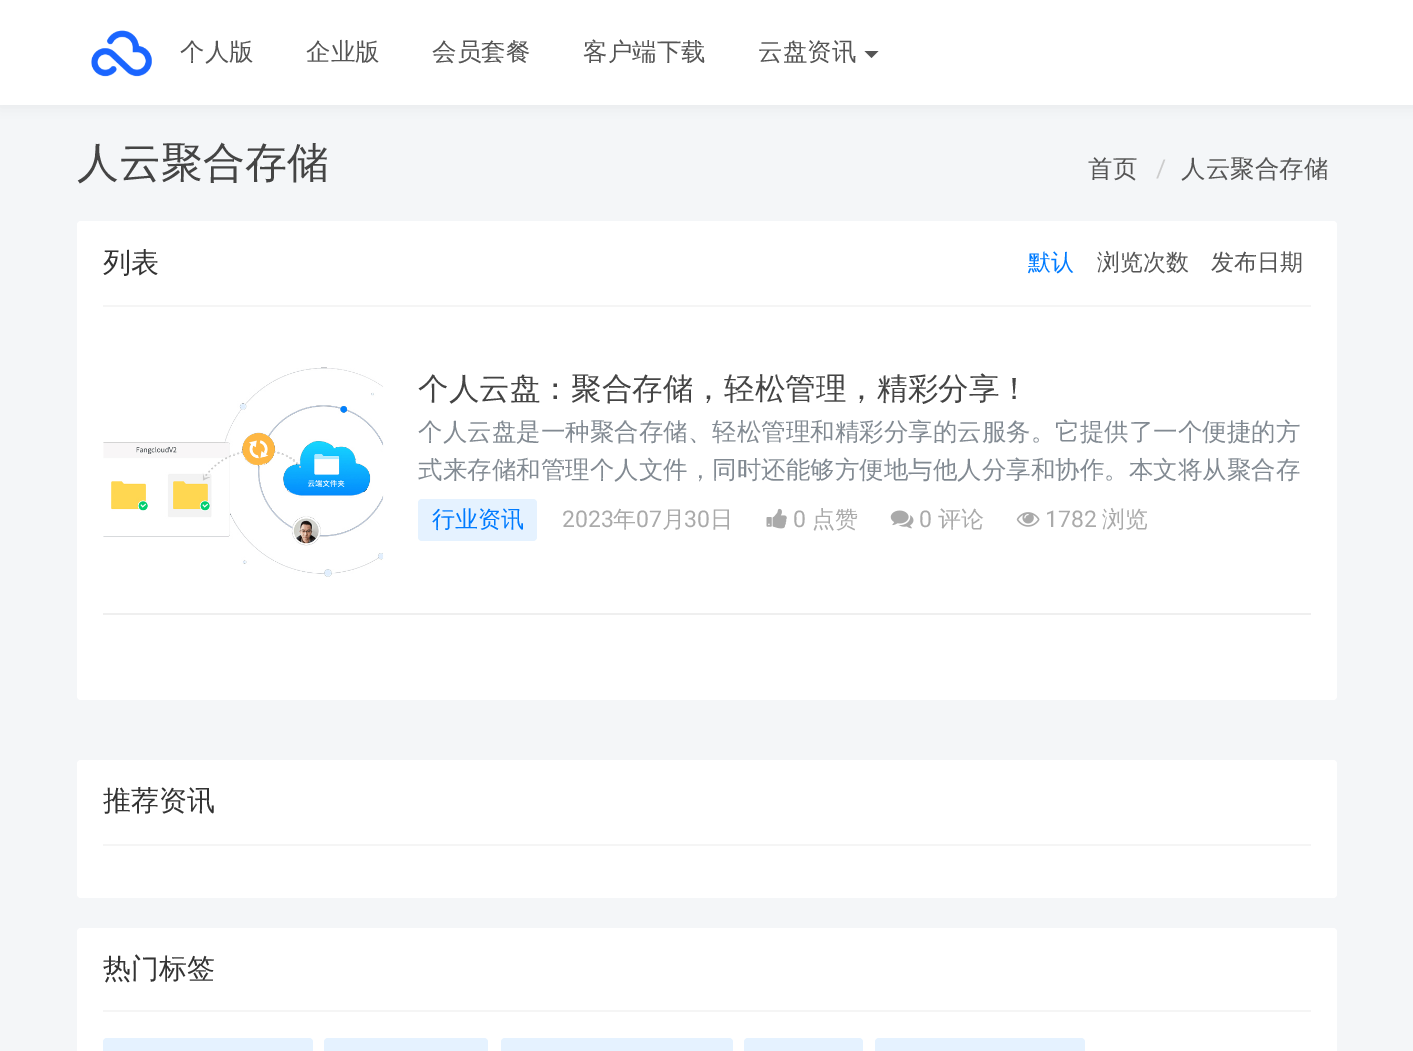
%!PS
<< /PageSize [1413 1051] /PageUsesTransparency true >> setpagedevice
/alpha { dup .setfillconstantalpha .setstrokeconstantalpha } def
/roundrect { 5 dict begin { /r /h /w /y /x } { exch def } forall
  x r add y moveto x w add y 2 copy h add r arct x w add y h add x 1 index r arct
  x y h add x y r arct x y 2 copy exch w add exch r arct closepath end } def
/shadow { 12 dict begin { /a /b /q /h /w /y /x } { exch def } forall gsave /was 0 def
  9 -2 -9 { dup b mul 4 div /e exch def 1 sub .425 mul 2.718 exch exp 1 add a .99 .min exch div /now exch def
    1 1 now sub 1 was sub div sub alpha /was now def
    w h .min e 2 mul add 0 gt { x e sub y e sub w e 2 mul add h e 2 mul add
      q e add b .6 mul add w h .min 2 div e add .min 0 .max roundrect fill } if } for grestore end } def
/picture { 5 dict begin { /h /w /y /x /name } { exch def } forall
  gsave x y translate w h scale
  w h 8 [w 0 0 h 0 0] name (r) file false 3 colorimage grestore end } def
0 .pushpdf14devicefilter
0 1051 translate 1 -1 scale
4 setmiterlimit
0.957 0.965 0.973 setrgbcolor
0 0 1413 1051 rectfill
0 setgray
0 2 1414 105 0 7 0.05 shadow
1 setgray
0 0 1413 105 rectfill
(img1.rgb) 91 30 61 47 picture
/WenQuanYiZenHei-Medium [24.5 0 0 -24.5 0 0] selectfont
0.333 setgray
180 60 moveto (个人版) show
306 60 moveto (企业版) show
432 60 moveto (会员套餐) show
583 60 moveto (客户端下载) show
758 60 moveto (云盘资讯) show
newpath 864.5 51 moveto 878.5 51 lineto 871.5 58 lineto closepath fill
/WenQuanYiZenHei-Medium [42 0 0 -42 0 0] selectfont
0.267 setgray
77 177 moveto (人云聚合存储) show
/WenQuanYiZenHei-Medium [24.5 0 0 -24.5 0 0] selectfont
0.333 setgray
1088 177 moveto (首页) show
/Roboto-Regular [24.5 0 0 -24.5 0 0] selectfont
0.8 setgray
1156 177 moveto (/) show
/WenQuanYiZenHei-Medium [24.5 0 0 -24.5 0 0] selectfont
0.333 setgray
1181 177 moveto (人云聚合存储) show
1 setgray
77 221 1260 479 4 roundrect fill
0.961 setgray
103 305 1208 2 rectfill
/WenQuanYiZenHei-Medium [28 0 0 -28 0 0] selectfont
0.2 setgray
103 272 moveto (列表) show
/WenQuanYiZenHei-Medium [23 0 0 -23 0 0] selectfont
0 0.482 1 setrgbcolor
1028 270 moveto (默认) show
0.333 setgray
1097 270 moveto (浏览次数) show
1211 270 moveto (发布日期) show
0.937 setgray
103 613 1208 2 rectfill
(img2.rgb) 103 367 281 210 picture
/WenQuanYiZenHei-Medium [30.6 0 0 -30.6 0 0] selectfont
0.267 setgray
418 399 moveto (个人云盘：聚合存储，轻松管理，精彩分享！) show
/WenQuanYiZenHei-Medium [24.5 0 0 -24.5 0 0] selectfont
0.51 0.541 0.573 setrgbcolor
418 440 moveto (个人云盘是一种聚合存储、轻松管理和精彩分享的云服务。它提供了一个便捷的方) show
418 478 moveto (式来存储和管理个人文件，同时还能够方便地与他人分享和协作。本文将从聚合存) show
0.898 0.949 1 setrgbcolor
418 499 119 42 4 roundrect fill
/WenQuanYiZenHei-Medium [23 0 0 -23 0 0] selectfont
0 0.482 1 setrgbcolor
432 527 moveto (行业资讯) show
/Roboto-Regular [23 0 0 -23 0 0] selectfont
0.667 setgray
562 527 moveto (2023) show
/WenQuanYiZenHei-Medium [23 0 0 -23 0 0] selectfont
613 527 moveto (年) show
/Roboto-Regular [23 0 0 -23 0 0] selectfont
636 527 moveto (07) show
/WenQuanYiZenHei-Medium [23 0 0 -23 0 0] selectfont
662 527 moveto (月) show
/Roboto-Regular [23 0 0 -23 0 0] selectfont
684 527 moveto (30) show
/WenQuanYiZenHei-Medium [23 0 0 -23 0 0] selectfont
710 527 moveto (日) show
(img3.rgb) 766 508 21 21 picture
/Roboto-Regular [23 0 0 -23 0 0] selectfont
793 527 moveto (0) show
/WenQuanYiZenHei-Medium [23 0 0 -23 0 0] selectfont
812 527 moveto (点赞) show
(img4.rgb) 890 510 24 19 picture
/Roboto-Regular [23 0 0 -23 0 0] selectfont
919 527 moveto (0) show
/WenQuanYiZenHei-Medium [23 0 0 -23 0 0] selectfont
938 527 moveto (评论) show
(img5.rgb) 1016 512 24 15 picture
/Roboto-Regular [23 0 0 -23 0 0] selectfont
1045 527 moveto (1782) show
/WenQuanYiZenHei-Medium [23 0 0 -23 0 0] selectfont
1102 527 moveto (浏览) show
1 setgray
77 760 1260 138 4 roundrect fill
0.961 setgray
103 844 1208 2 rectfill
/WenQuanYiZenHei-Medium [28 0 0 -28 0 0] selectfont
0.2 setgray
103 810 moveto (推荐资讯) show
1 setgray
77 928 1260 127 4 roundrect fill
0.961 setgray
103 1010 1208 2 rectfill
0.2 setgray
103 978 moveto (热门标签) show
0.898 0.949 1 setrgbcolor
103 1038 210 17 4 roundrect fill
324 1038 164 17 4 roundrect fill
501 1038 232 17 4 roundrect fill
744 1038 119 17 4 roundrect fill
875 1038 210 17 4 roundrect fill
.poppdf14devicefilter showpage
